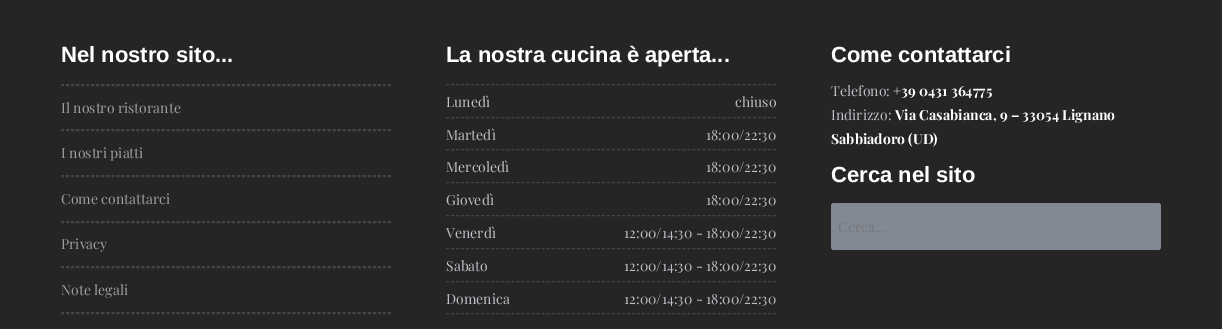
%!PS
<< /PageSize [1222 329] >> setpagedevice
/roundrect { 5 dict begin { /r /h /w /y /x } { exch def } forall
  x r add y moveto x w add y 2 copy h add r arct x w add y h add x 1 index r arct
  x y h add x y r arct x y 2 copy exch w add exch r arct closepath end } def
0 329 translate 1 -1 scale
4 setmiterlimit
0.145 setgray
0 0 1222 329 rectfill
/LiberationSans-Bold [22 0 0 -22 0 0] selectfont
1 setgray
61 62 moveto (Nel nostro sito...) show
0.271 0.267 0.267 setrgbcolor
[3 2.03] 0 setdash
newpath 61 84.5 moveto 391 84.5 lineto stroke
newpath 61 85.5 moveto 391 85.5 lineto stroke
newpath 61 129.5 moveto 391 129.5 lineto stroke
/PlayfairDisplay-Regular [14 0 0 -14 0 0] selectfont
0.612 0.624 0.643 setrgbcolor
61 113 moveto (Il nostro ristorante) show
0.271 0.267 0.267 setrgbcolor
newpath 61 130.5 moveto 391 130.5 lineto stroke
newpath 61 175.5 moveto 391 175.5 lineto stroke
0.612 0.624 0.643 setrgbcolor
61 158 moveto (I nostri piatti) show
0.271 0.267 0.267 setrgbcolor
newpath 61 176.5 moveto 391 176.5 lineto stroke
newpath 61 221.5 moveto 391 221.5 lineto stroke
0.612 0.624 0.643 setrgbcolor
61 204 moveto (Come contattarci) show
0.271 0.267 0.267 setrgbcolor
newpath 61 222.5 moveto 391 222.5 lineto stroke
newpath 61 266.5 moveto 391 266.5 lineto stroke
0.612 0.624 0.643 setrgbcolor
61 249 moveto (Privacy) show
0.271 0.267 0.267 setrgbcolor
newpath 61 267.5 moveto 391 267.5 lineto stroke
newpath 61 312.5 moveto 391 312.5 lineto stroke
0.612 0.624 0.643 setrgbcolor
61 295 moveto (Note legali) show
0.271 0.267 0.267 setrgbcolor
newpath 61 313.5 moveto 391 313.5 lineto stroke
/LiberationSans-Bold [22 0 0 -22 0 0] selectfont
1 setgray
446 62 moveto (La nostra cucina è aperta...) show
0.271 0.267 0.267 setrgbcolor
newpath 446 84.5 moveto 776 84.5 lineto stroke
newpath 446 117.5 moveto 776 117.5 lineto stroke
/PlayfairDisplay-Regular [14 0 0 -14 0 0] selectfont
0.741 0.753 0.776 setrgbcolor
446 107 moveto (Lunedì) show
735 107 moveto (chiuso) show
0.271 0.267 0.267 setrgbcolor
newpath 446 149.5 moveto 776 149.5 lineto stroke
0.741 0.753 0.776 setrgbcolor
446 140 moveto (Martedì) show
706 140 moveto (18:00/22:30) show
0.271 0.267 0.267 setrgbcolor
newpath 446 182.5 moveto 776 182.5 lineto stroke
0.741 0.753 0.776 setrgbcolor
446 172 moveto (Mercoledì) show
706 172 moveto (18:00/22:30) show
0.271 0.267 0.267 setrgbcolor
newpath 446 215.5 moveto 776 215.5 lineto stroke
0.741 0.753 0.776 setrgbcolor
446 205 moveto (Giovedì) show
706 205 moveto (18:00/22:30) show
0.271 0.267 0.267 setrgbcolor
newpath 446 248.5 moveto 776 248.5 lineto stroke
0.741 0.753 0.776 setrgbcolor
446 238 moveto (Venerdì) show
624 238 moveto (12:00/14:30 - 18:00/22:30) show
0.271 0.267 0.267 setrgbcolor
newpath 446 281.5 moveto 776 281.5 lineto stroke
0.741 0.753 0.776 setrgbcolor
446 271 moveto (Sabato) show
624 271 moveto (12:00/14:30 - 18:00/22:30) show
0.271 0.267 0.267 setrgbcolor
newpath 446 313.5 moveto 776 313.5 lineto stroke
0.741 0.753 0.776 setrgbcolor
446 304 moveto (Domenica) show
624 304 moveto (12:00/14:30 - 18:00/22:30) show
/LiberationSans-Bold [22 0 0 -22 0 0] selectfont
1 setgray
831 62 moveto (Come contattarci) show
/PlayfairDisplay-Regular [14 0 0 -14 0 0] selectfont
0.741 0.753 0.776 setrgbcolor
831 96 moveto (Telefono:) show
/PlayfairDisplay-Bold [14 0 0 -14 0 0] selectfont
1 setgray
893 96 moveto (+39 0431 364775) show
/PlayfairDisplay-Regular [14 0 0 -14 0 0] selectfont
0.741 0.753 0.776 setrgbcolor
831 120 moveto (Indirizzo:) show
/PlayfairDisplay-Bold [14 0 0 -14 0 0] selectfont
1 setgray
895 120 moveto (Via Casabianca, 9 – 33054 Lignano) show
831 144 moveto (Sabbiadoro \(UD\)) show
/LiberationSans-Bold [22 0 0 -22 0 0] selectfont
831 182 moveto (Cerca nel sito) show
0.51 0.537 0.584 setrgbcolor
831 203 330 47 3 roundrect fill
/PlayfairDisplay-Regular [14 0 0 -14 0 0] selectfont
0.459 setgray
838 232 moveto (Cerca...) show
showpage
